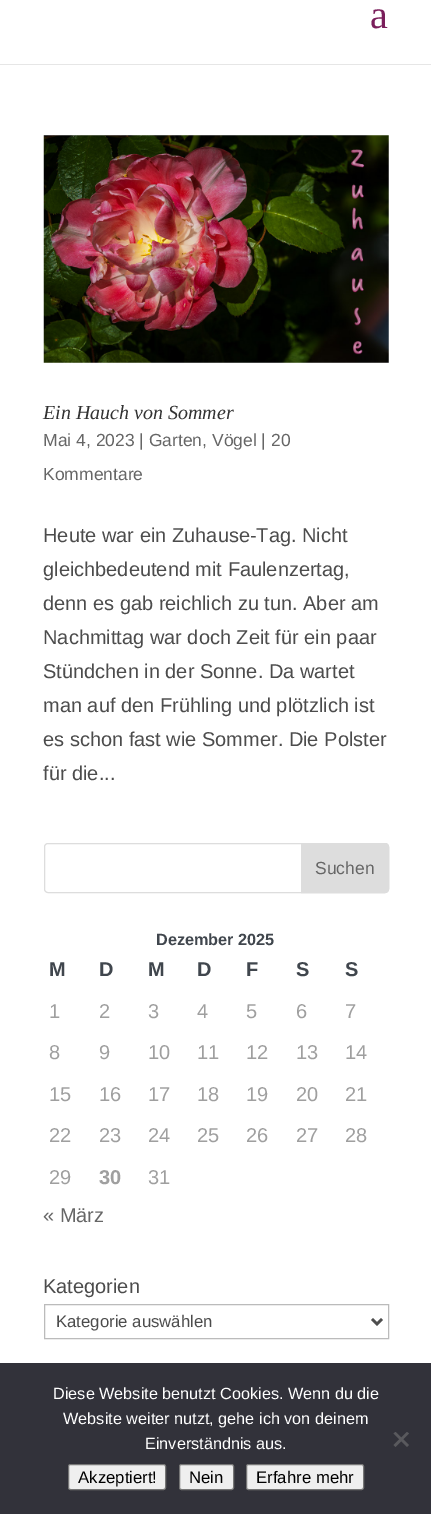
%!PS
<< /PageSize [431 1514] >> setpagedevice
/roundrect { 5 dict begin { /r /h /w /y /x } { exch def } forall
  x r add y moveto x w add y 2 copy h add r arct x w add y h add x 1 index r arct
  x y h add x y r arct x y 2 copy exch w add exch r arct closepath end } def
/picture { 5 dict begin { /h /w /y /x /name } { exch def } forall
  gsave x y translate w h scale
  w h 8 [w 0 0 h 0 0] name (r) file false 3 colorimage grestore end } def
0 1514 translate 1 -1 scale
4 setmiterlimit
1 setgray
0 0 431 1514 rectfill
0.902 setgray
0 64 431 1 rectfill
/LiberationSerif-Regular [40 0 0 -40 0 0] selectfont
0.478 0.118 0.357 setrgbcolor
370 28 moveto (a) show
(img1.rgb) 43 135 346 228 picture
/LiberationSerif-Italic [20 0 0 -20 0 0] selectfont
0.2 setgray
43 419 moveto (Ein Hauch von Sommer) show
/LiberationSans-Regular [17.5 0 0 -17.5 0 0] selectfont
0.4 setgray
43 446 moveto (Mai 4, 2023 | Garten, Vögel | 20) show
43 480 moveto (Kommentare) show
/LiberationSans-Regular [20 0 0 -20 0 0] selectfont
0.298 setgray
43 542 moveto (Heute war ein Zuhause-Tag. Nicht) show
43 576 moveto (gleichbedeutend mit Faulenzertag,) show
43 610 moveto (denn es gab reichlich zu tun. Aber am) show
43 644 moveto (Nachmittag war doch Zeit für ein paar) show
43 678 moveto (Stündchen in der Sonne. Da wartet) show
43 712 moveto (man auf den Frühling und plötzlich ist) show
43 746 moveto (es schon fast wie Sommer. Die Polster) show
43 780 moveto (für die...) show
0.867 setgray
44.5 843.5 344 49 3.5 roundrect stroke
newpath 301.5 843.5 moveto 385 843.5 lineto 387 843.5 388.5 845 388.5 847 curveto 388.5 889 lineto 388.5 891 387 892.5 385 892.5 curveto 301.5 892.5 lineto closepath gsave fill grestore
stroke
/LiberationSans-Regular [17.5 0 0 -17.5 0 0] selectfont
0.4 setgray
315 874 moveto (Suchen) show
/LiberationSans-Bold [16.25 0 0 -16.25 0 0] selectfont
0.251 0.275 0.302 setrgbcolor
156 945 moveto (Dezember 2025) show
/LiberationSans-Bold [20 0 0 -20 0 0] selectfont
49 976 moveto (M) show
99 976 moveto (D) show
148 976 moveto (M) show
197 976 moveto (D) show
246 976 moveto (F) show
296 976 moveto (S) show
345 976 moveto (S) show
/LiberationSans-Regular [20 0 0 -20 0 0] selectfont
0.624 setgray
49 1018 moveto (1) show
99 1018 moveto (2) show
148 1018 moveto (3) show
197 1018 moveto (4) show
246 1018 moveto (5) show
296 1018 moveto (6) show
345 1018 moveto (7) show
49 1059 moveto (8) show
99 1059 moveto (9) show
148 1059 moveto (10) show
197 1059 moveto (11) show
246 1059 moveto (12) show
296 1059 moveto (13) show
345 1059 moveto (14) show
49 1101 moveto (15) show
99 1101 moveto (16) show
148 1101 moveto (17) show
197 1101 moveto (18) show
246 1101 moveto (19) show
296 1101 moveto (20) show
345 1101 moveto (21) show
49 1142 moveto (22) show
99 1142 moveto (23) show
148 1142 moveto (24) show
197 1142 moveto (25) show
246 1142 moveto (26) show
296 1142 moveto (27) show
345 1142 moveto (28) show
49 1184 moveto (29) show
/LiberationSans-Bold [20 0 0 -20 0 0] selectfont
99 1184 moveto (30) show
/LiberationSans-Regular [20 0 0 -20 0 0] selectfont
148 1184 moveto (31) show
0.4 setgray
43 1222 moveto (« März) show
0.298 setgray
43 1293 moveto (Kategorien) show
0.733 setgray
44.5 1304.5 344 34 rectstroke
0.306 setgray
2.5 setlinewidth
newpath 372 1319 moveto 377 1324 lineto 382 1319 lineto stroke
/LiberationSans-Regular [16.75 0 0 -16.75 0 0] selectfont
0.298 setgray
56 1327 moveto (Kategorie auswählen) show
0.196 0.196 0.227 setrgbcolor
0 1363 431 151 rectfill
/LiberationSans-Regular [16.25 0 0 -16.25 0 0] selectfont
1 setgray
53 1399 moveto (Diese Website benutzt Cookies. Wenn du die) show
63 1424 moveto (Website weiter nutzt, gehe ich von deinem) show
145 1449 moveto (Einverständnis aus.) show
0.349 0.349 0.365 setrgbcolor
newpath 407 1432 moveto 409 1433.5 lineto 395.5 1447 lineto 393.5 1445 lineto closepath fill
newpath 393.5 1433.5 moveto 395.5 1432 lineto 409 1445 lineto 407 1447 lineto closepath fill
0.937 setgray
68.5 1464.5 97 25 2 roundrect gsave fill grestore
0.463 setgray
1 setlinewidth
stroke
/LiberationSans-Regular [16.75 0 0 -16.75 0 0] selectfont
0 setgray
78 1483 moveto (Akzeptiert!) show
0.937 setgray
179.5 1464.5 54 25 2 roundrect gsave fill grestore
0.463 setgray
stroke
0 setgray
189 1483 moveto (Nein) show
0.937 setgray
246.5 1464.5 117 25 2 roundrect gsave fill grestore
0.463 setgray
stroke
0 setgray
256 1483 moveto (Erfahre mehr) show
showpage
